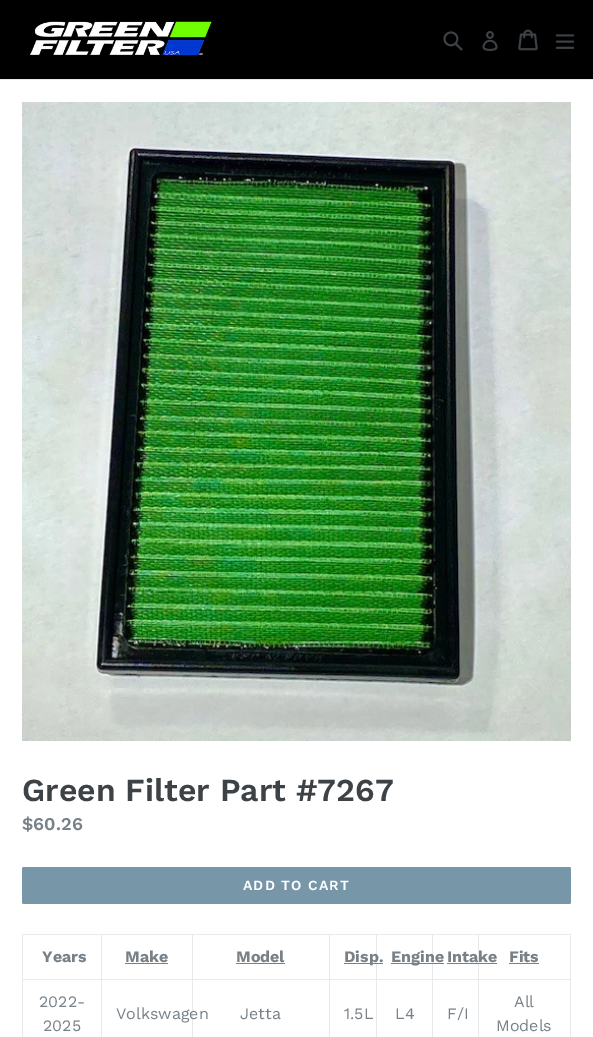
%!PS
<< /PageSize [593 1037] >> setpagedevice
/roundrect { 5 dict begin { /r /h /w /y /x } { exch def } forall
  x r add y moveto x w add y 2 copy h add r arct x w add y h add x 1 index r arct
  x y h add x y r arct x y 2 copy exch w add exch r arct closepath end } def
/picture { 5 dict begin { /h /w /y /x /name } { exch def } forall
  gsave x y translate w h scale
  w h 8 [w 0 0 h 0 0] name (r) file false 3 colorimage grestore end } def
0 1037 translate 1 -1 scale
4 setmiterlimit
1 setgray
0 0 593 1037 rectfill
0 setgray
0 0 593 79 rectfill
0.91 0.914 0.922 setrgbcolor
0 79 593 1 rectfill
(img1.rgb) 29 21 184 36 picture
(img2.rgb) 443 31 20 20 picture
(img3.rgb) 482 31 16 20 picture
(img4.rgb) 518 29 20 22 picture
(img5.rgb) 555 34 20 15 picture
(img6.rgb) 22 102 549 639 picture
/WorkSans-SemiBold [32 0 0 -32 0 0] selectfont
0.239 0.259 0.275 setrgbcolor
22 801 moveto (Green Filter Part #7267) show
/WorkSans-SemiBold [18 0 0 -18 0 0] selectfont
0.471 0.506 0.533 setrgbcolor
22 830 moveto ($60.26) show
0.467 0.588 0.659 setrgbcolor
22 867 549 37 2 roundrect fill
/WorkSans-SemiBold [14 0 0 -14 0 0] selectfont
1 setgray
243 890 moveto 1.1 0 (ADD TO CART) ashow
0.91 0.914 0.922 setrgbcolor
478 934 93 1 rectfill
478 979 93 1 rectfill
478 979 1 58 rectfill
432 979 47 1 rectfill
478 934 1 46 rectfill
432 934 47 1 rectfill
432 979 1 58 rectfill
376 979 57 1 rectfill
432 934 1 46 rectfill
376 934 57 1 rectfill
376 979 1 58 rectfill
329 979 48 1 rectfill
376 934 1 46 rectfill
329 934 48 1 rectfill
329 979 1 58 rectfill
192 979 138 1 rectfill
329 934 1 46 rectfill
192 934 138 1 rectfill
192 979 1 58 rectfill
101 979 92 1 rectfill
192 934 1 46 rectfill
101 934 92 1 rectfill
101 979 1 58 rectfill
22 979 80 1 rectfill
101 934 1 46 rectfill
22 934 80 1 rectfill
22 979 1 58 rectfill
22 934 1 46 rectfill
/WorkSans-Bold [16 0 0 -16 0 0] selectfont
0.471 0.506 0.533 setrgbcolor
42 962 moveto (Years) show
125 962 moveto (Make) show
125 963 43 1 rectfill
236 962 moveto (Model) show
236 963 49 1 rectfill
344 963 39 1 rectfill
344 962 moveto (Disp.) show
391 963 53 1 rectfill
391 962 moveto (Engine) show
447 962 moveto (Intake) show
447 963 50 1 rectfill
0.91 0.914 0.922 setrgbcolor
570 979 1 58 rectfill
570 934 1 46 rectfill
0.471 0.506 0.533 setrgbcolor
509 962 moveto (Fits) show
509 963 30 1 rectfill
/WorkSans-Regular [16 0 0 -16 0 0] selectfont
39 1007 moveto (2022-) show
43 1031 moveto (2025) show
116 1019 moveto (Volkswagen) show
240 1019 moveto (Jetta) show
344 1019 moveto (1.5L) show
395 1019 moveto (L4) show
447 1019 moveto (F/I) show
514 1007 moveto (All) show
496 1031 moveto (Models) show
showpage
